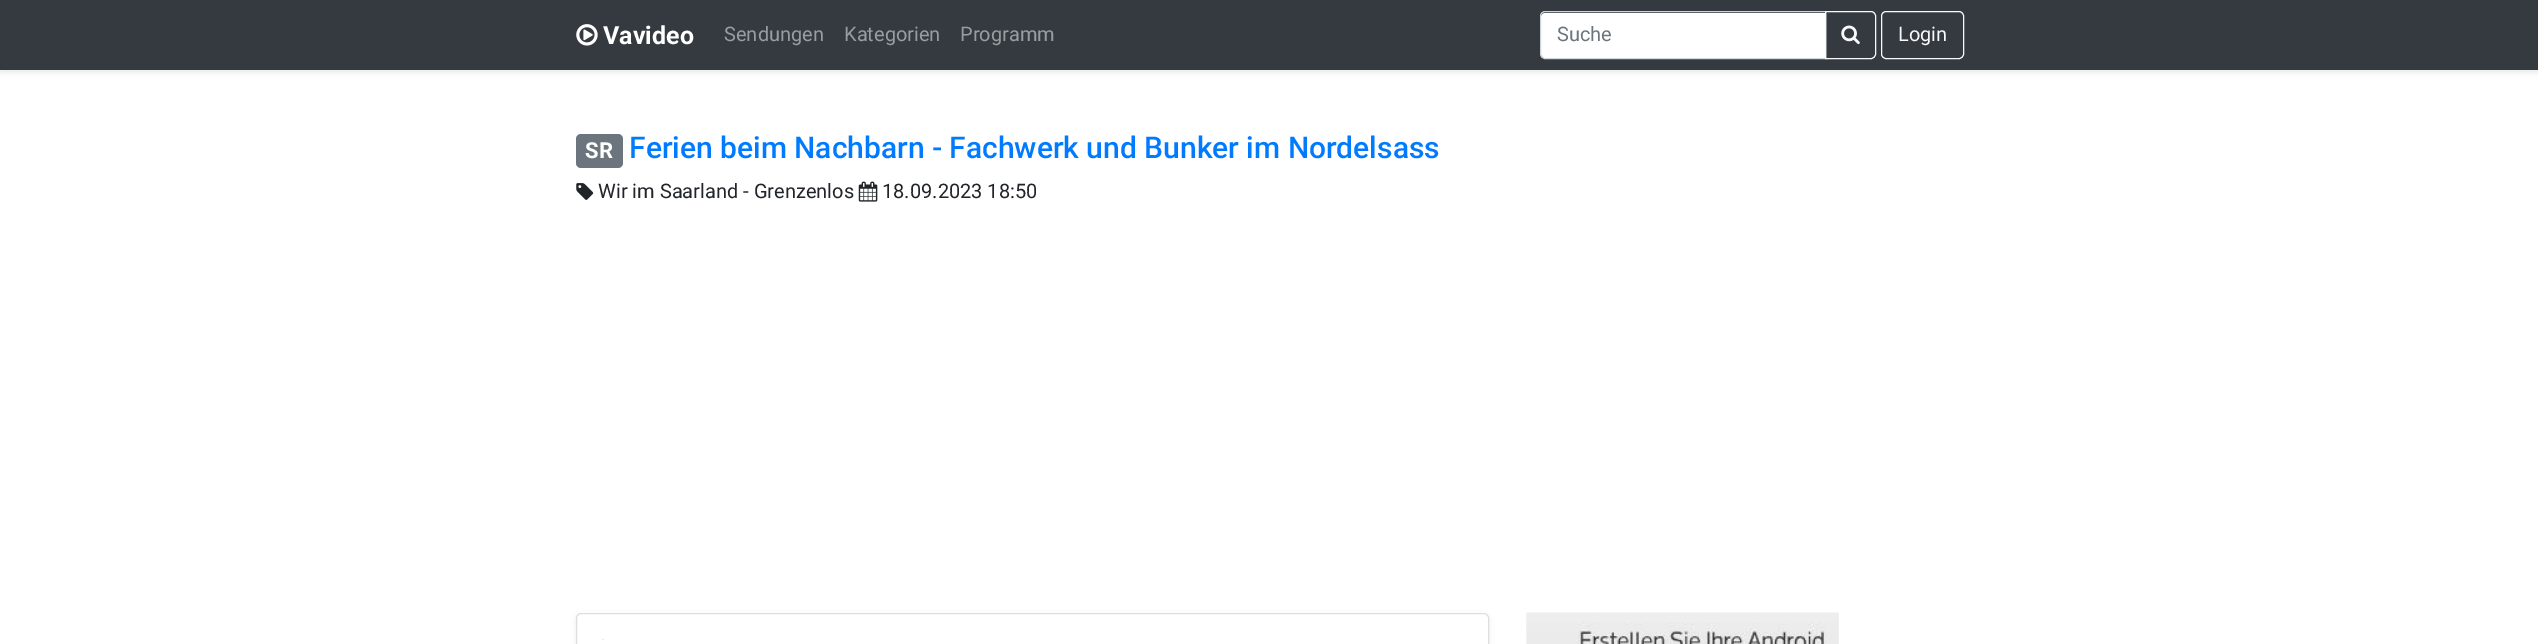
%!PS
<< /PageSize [2538 644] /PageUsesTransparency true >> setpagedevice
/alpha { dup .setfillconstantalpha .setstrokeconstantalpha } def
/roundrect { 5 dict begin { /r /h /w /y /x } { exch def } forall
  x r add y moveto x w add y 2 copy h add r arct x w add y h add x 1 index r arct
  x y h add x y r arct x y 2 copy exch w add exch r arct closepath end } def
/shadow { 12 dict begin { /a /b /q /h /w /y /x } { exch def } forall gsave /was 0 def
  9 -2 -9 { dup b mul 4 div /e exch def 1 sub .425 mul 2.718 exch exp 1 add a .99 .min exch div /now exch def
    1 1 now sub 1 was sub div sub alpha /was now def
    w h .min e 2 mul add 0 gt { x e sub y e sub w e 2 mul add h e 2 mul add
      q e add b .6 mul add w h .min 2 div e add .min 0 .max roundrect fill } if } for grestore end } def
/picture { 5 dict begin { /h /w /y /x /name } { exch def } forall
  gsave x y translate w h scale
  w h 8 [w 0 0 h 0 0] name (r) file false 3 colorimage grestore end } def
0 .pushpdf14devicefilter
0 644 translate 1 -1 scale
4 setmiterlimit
1 setgray
0 0 2538 644 rectfill
0 setgray
0 3 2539 70 0 2.5 0.07 shadow
0.204 0.227 0.251 setrgbcolor
0 0 2538 70 rectfill
(img1.rgb) 576 24 22 22 picture
/Roboto-Bold [25 0 0 -25 0 0] selectfont
1 setgray
603 44 moveto (Vavideo) show
/Roboto-Regular [20 0 0 -20 0 0] selectfont
0.604 0.616 0.627 setrgbcolor
724 41 moveto (Sendungen) show
844 41 moveto (Kategorien) show
960 41 moveto (Programm) show
1 setgray
newpath 1545 13 moveto 1825 13 lineto 1825 58 lineto 1545 58 lineto 1543 58 1541 56 1541 54 curveto 1541 17 lineto 1541 15 1543 13 1545 13 curveto closepath fill
0.808 0.831 0.855 setrgbcolor
newpath 1545 11.5 moveto 1825.5 11.5 lineto 1825.5 58.5 lineto 1545 58.5 lineto 1542.5 58.5 1540.5 56.5 1540.5 54 curveto 1540.5 16 lineto 1540.5 13.5 1542.5 11.5 1545 11.5 curveto closepath stroke
0.424 0.459 0.49 setrgbcolor
1557 41 moveto (Suche) show
0.973 0.976 0.98 setrgbcolor
newpath 1825.5 11.5 moveto 1871 11.5 lineto 1873.5 11.5 1875.5 13.5 1875.5 16 curveto 1875.5 54 lineto 1875.5 56.5 1873.5 58.5 1871 58.5 curveto 1825.5 58.5 lineto closepath stroke
(img2.rgb) 1841 25 19 20 picture
1881.5 11.5 82 47 4.5 roundrect stroke
1898 41 moveto (Login) show
0.424 0.459 0.49 setrgbcolor
576 134 47 34 5 roundrect fill
/Roboto-Bold [22 0 0 -22 0 0] selectfont
1 setgray
585 158 moveto (SR) show
/Roboto-Medium [30 0 0 -30 0 0] selectfont
0 0.482 1 setrgbcolor
629 158 moveto (Ferien beim Nachbarn - Fachwerk und Bunker im Nordelsass) show
(img3.rgb) 576 183 18 17 picture
/Roboto-Regular [20 0 0 -20 0 0] selectfont
0.129 0.145 0.161 setrgbcolor
598 198 moveto (Wir im Saarland - Grenzenlos) show
(img4.rgb) 858 181 20 21 picture
882 198 moveto (18.09.2023 18:50) show
0 setgray
576 615 913 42 5 2.5 0.07 shadow
1 setgray
576.5 613.5 912 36 4.5 roundrect gsave fill grestore
0.875 setgray
stroke
(img5.rgb) 602 639 2 1 picture
(img6.rgb) 1526 612 313 32 picture
.poppdf14devicefilter showpage
